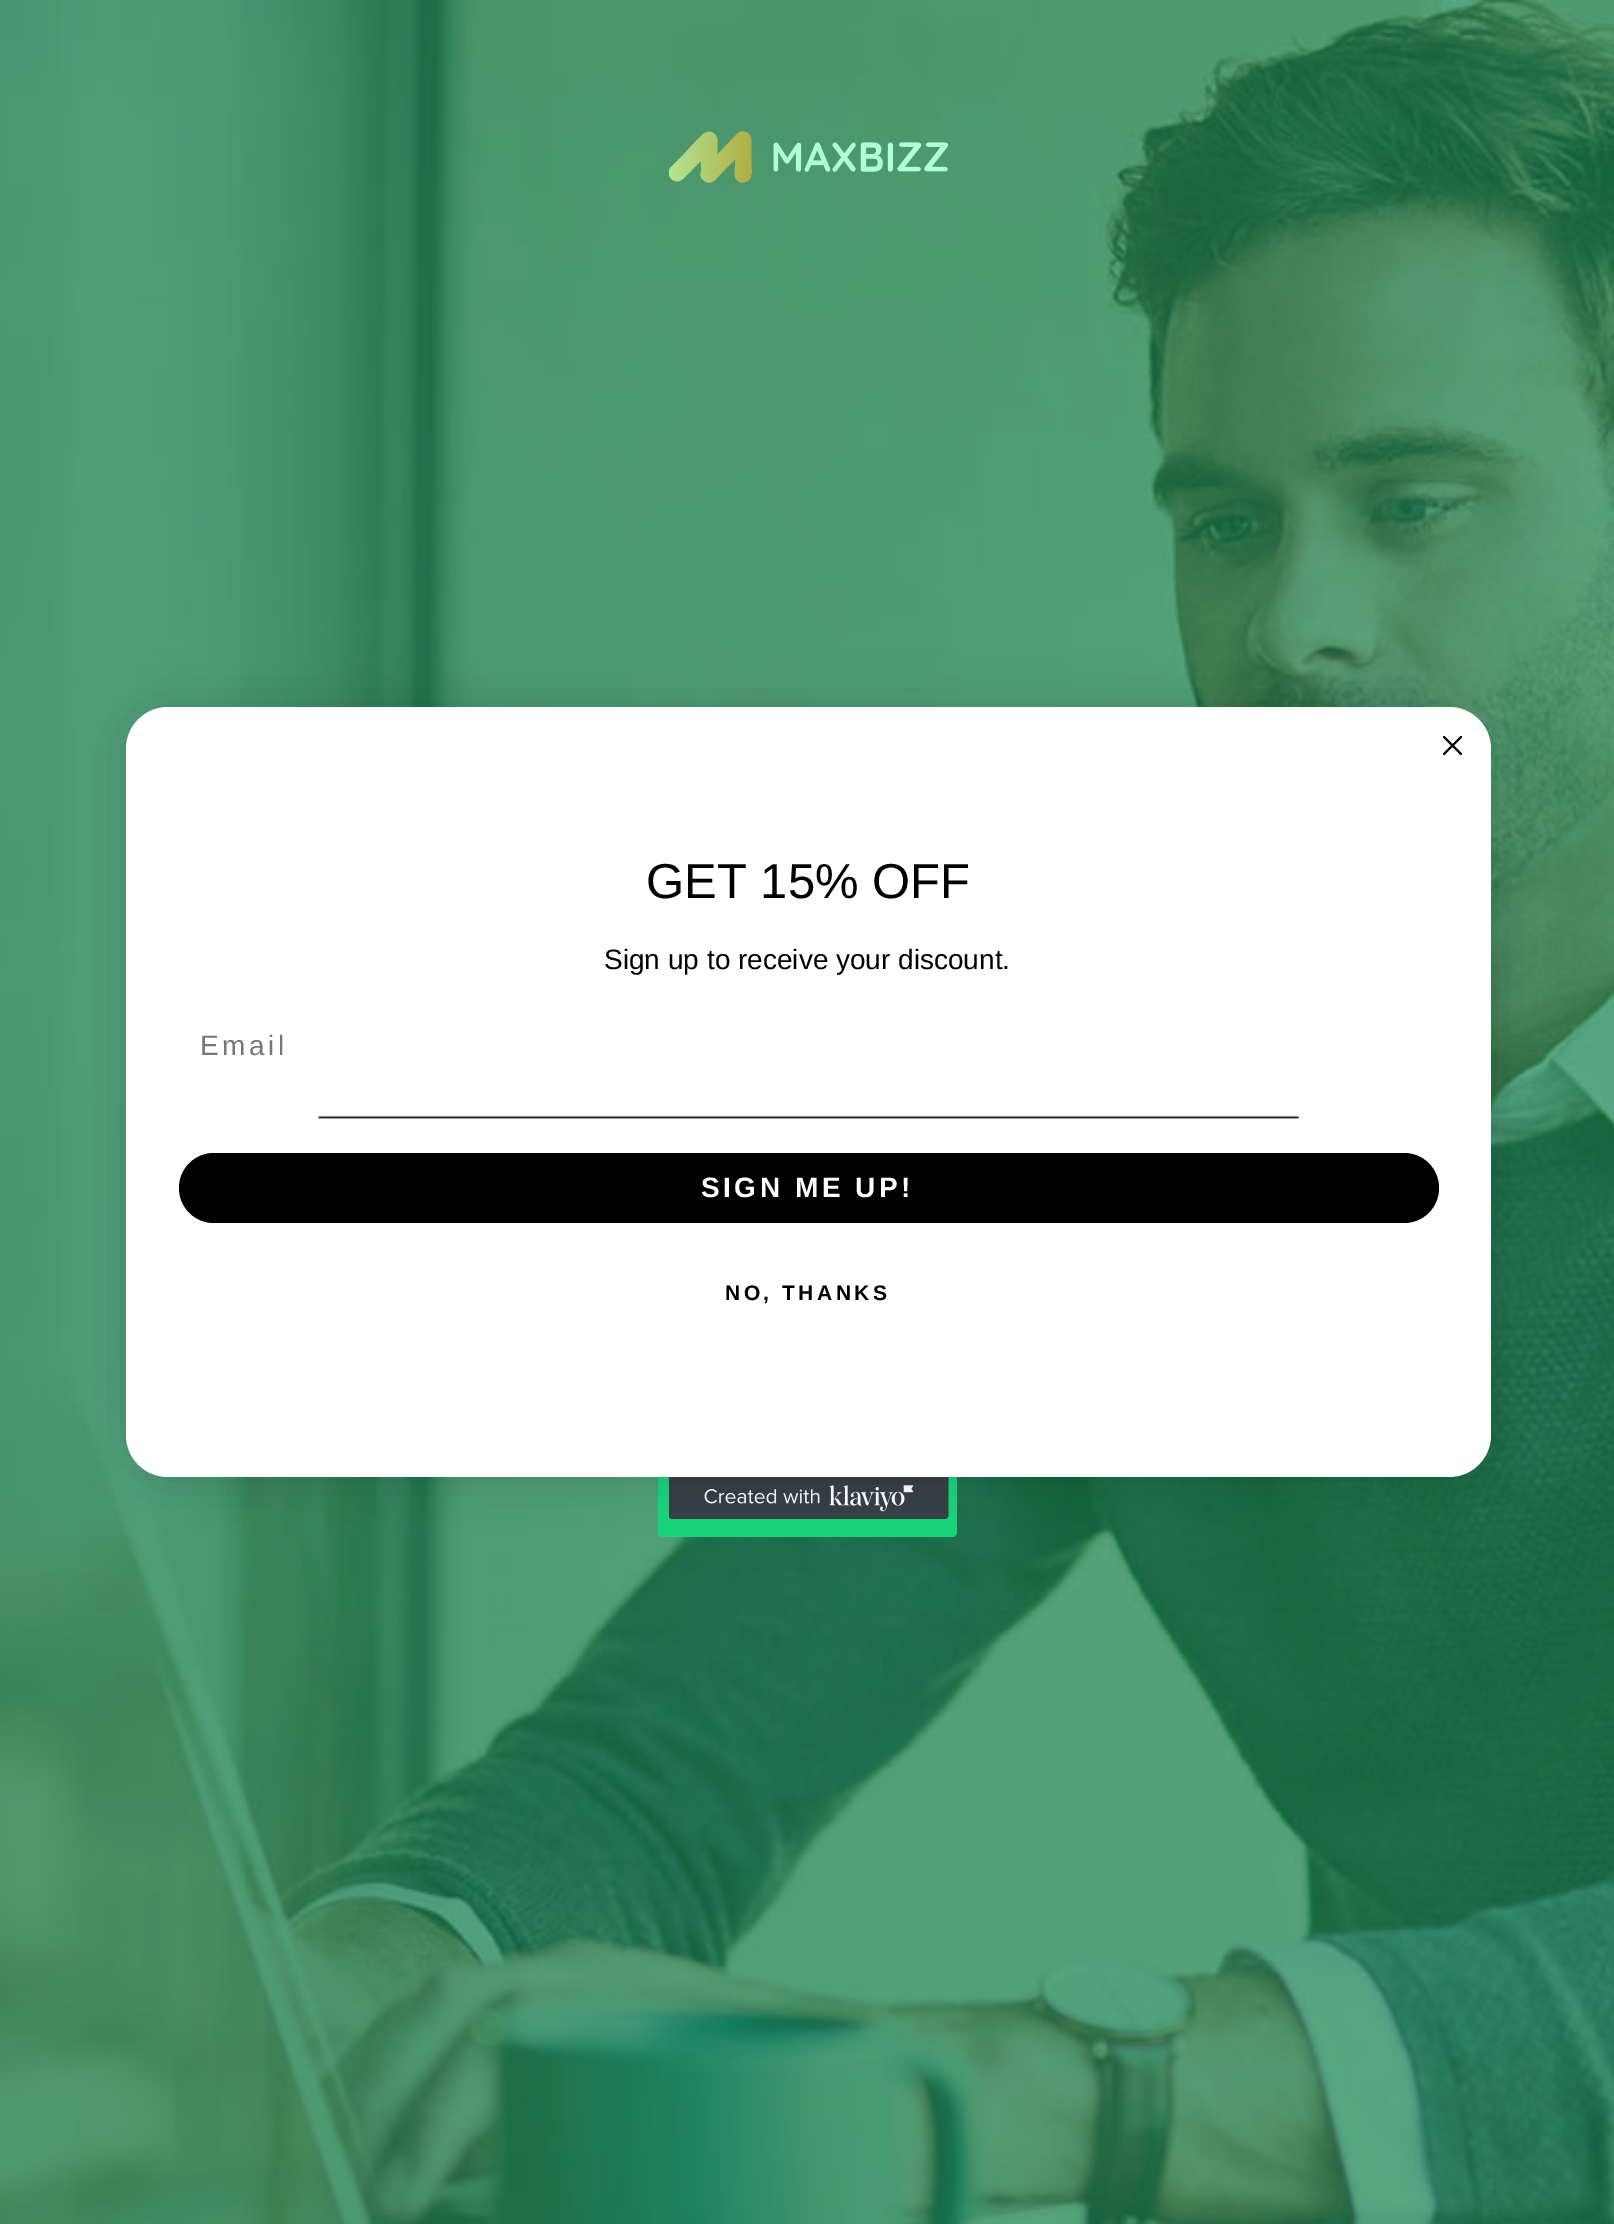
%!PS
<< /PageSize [1614 2224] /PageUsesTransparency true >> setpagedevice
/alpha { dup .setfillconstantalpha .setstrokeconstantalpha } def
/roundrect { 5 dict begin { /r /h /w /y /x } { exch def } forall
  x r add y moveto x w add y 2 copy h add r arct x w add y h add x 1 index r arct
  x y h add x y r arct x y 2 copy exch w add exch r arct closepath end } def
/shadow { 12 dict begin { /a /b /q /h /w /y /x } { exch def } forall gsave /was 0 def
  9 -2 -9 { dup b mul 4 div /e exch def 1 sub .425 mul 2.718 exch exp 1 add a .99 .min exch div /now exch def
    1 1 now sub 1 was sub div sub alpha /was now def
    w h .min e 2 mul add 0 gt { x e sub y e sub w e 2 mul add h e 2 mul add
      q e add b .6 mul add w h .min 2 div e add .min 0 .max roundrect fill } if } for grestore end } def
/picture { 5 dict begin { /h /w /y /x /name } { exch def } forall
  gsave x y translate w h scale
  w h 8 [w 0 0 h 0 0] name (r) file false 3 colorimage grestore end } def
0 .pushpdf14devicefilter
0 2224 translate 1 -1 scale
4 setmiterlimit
1 setgray
0 0 1614 2224 rectfill
(img1.rgb) 0 0 1614 2224 picture
(img2.rgb) 669 131 280 52 picture
0.098 0.831 0.478 setrgbcolor
658 1449 299 88 5 roundrect fill
(img4.rgb) 669 1477 280 42 picture
0 setgray
126 707 1365 770 42 26 0.15 shadow
1 setgray
126 707 1365 770 42 roundrect fill
0 setgray
2.1 setlinewidth
1 setlinecap
1 setlinejoin
newpath 1444 737 moveto 1461 754 lineto 1444 754 moveto 1461 737 lineto closepath stroke
/LiberationSans-Regular [49 0 0 -49 0 0] selectfont
646 898 moveto (GET 15% OFF) show
/LiberationSans-Regular [28 0 0 -28 0 0] selectfont
604 969 moveto (Sign up to receive your discount.) show
0.463 setgray
200 1055 moveto 3.5 0 (Email) ashow
(img3.rgb) 317 1115 982 4 picture
0 setgray
179 1153 1260 70 35 roundrect fill
/LiberationSans-Bold [28 0 0 -28 0 0] selectfont
1 setgray
701 1197 moveto 3.5 0 (SIGN ME UP!) ashow
/LiberationSans-Bold [21 0 0 -21 0 0] selectfont
0 setgray
725 1300 moveto 3.5 0 (NO, THANKS) ashow
.poppdf14devicefilter showpage
